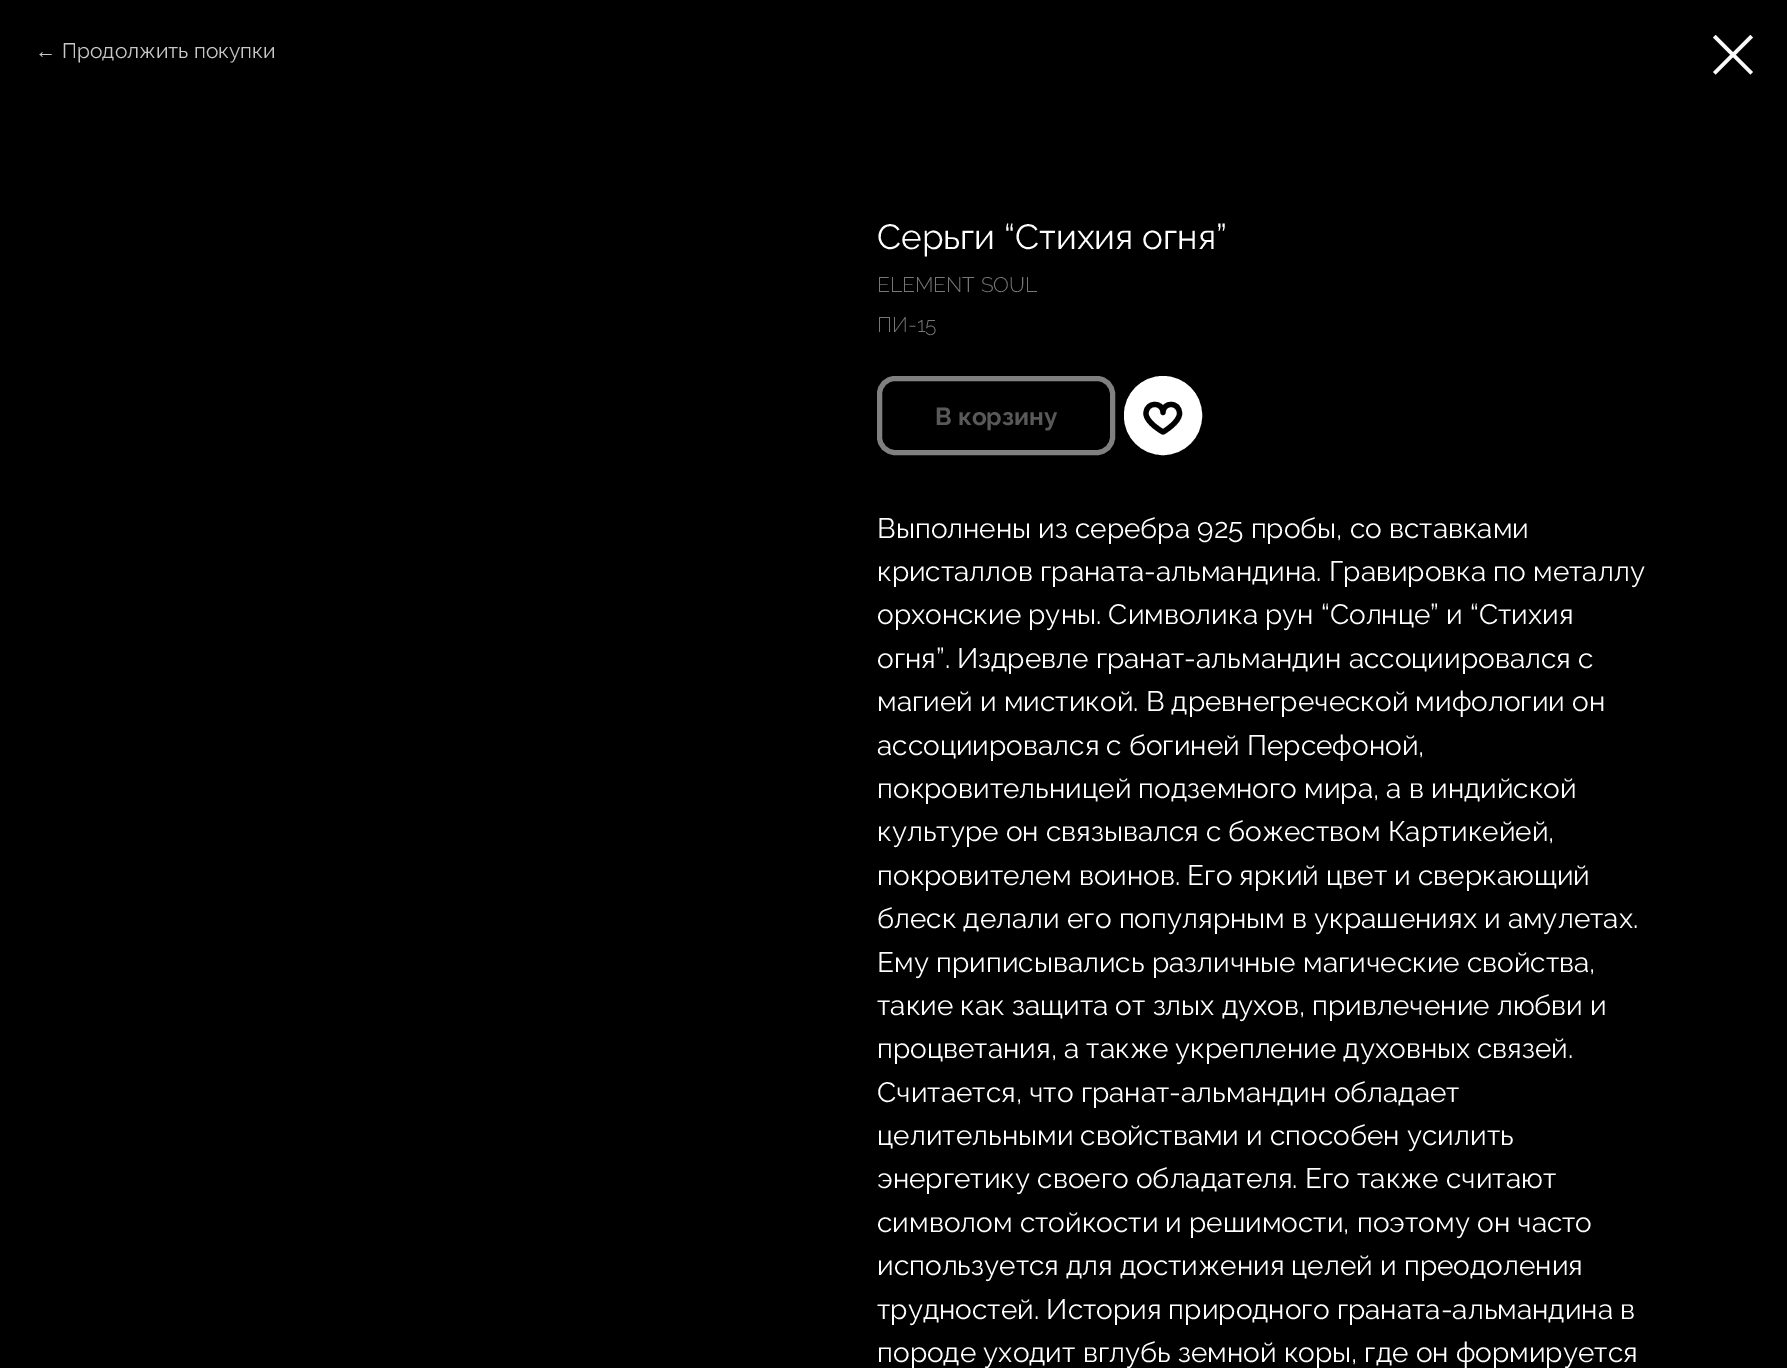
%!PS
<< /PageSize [1787 1368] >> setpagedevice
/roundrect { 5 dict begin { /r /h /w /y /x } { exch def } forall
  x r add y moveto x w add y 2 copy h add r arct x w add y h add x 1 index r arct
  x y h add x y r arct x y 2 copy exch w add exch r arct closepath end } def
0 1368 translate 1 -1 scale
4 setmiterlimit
0 setgray
0 0 1787 1368 rectfill
/LiberationSans-Regular [21 0 0 -21 0 0] selectfont
0.784 setgray
35 58 moveto (←) show
/Raleway-Regular [21 0 0 -21 0 0] selectfont
62 58 moveto (Продолжить покупки) show
0.98 setgray
newpath 1713 37.5 moveto 1715.5 35 lineto 1753 72 lineto 1750.5 74.5 lineto closepath eofill
newpath 1750.5 35 moveto 1753 37.5 lineto 1715.5 74.5 lineto 1713 72 lineto closepath eofill
/Raleway-Regular [35 0 0 -35 0 0] selectfont
1 setgray
877 249 moveto (Серьги “Стихия огня”) show
/Raleway-Light [21 0 0 -21 0 0] selectfont
0.467 setgray
877 292 moveto (ELEMENT SOUL) show
877 332 moveto (ПИ-15) show
0.502 setgray
5 setlinewidth
879.5 378.5 233 74 15.5 roundrect stroke
/Raleway-Bold [24.5 0 0 -24.5 0 0] selectfont
0.349 setgray
935 425 moveto (В корзину) show
1 setgray
1126.5 378.5 73 74 36.5 roundrect gsave fill grestore
stroke
0 setgray
5.2 setlinewidth
1 setlinejoin
newpath 1179.5 413.5 moveto 1179.5 422.5 1163 432 1163 432 curveto 1163 432 1146 422.5 1146 413.5 curveto 1146 401.5 1163 401.5 1163 412.5 curveto 1163 401.5 1179.5 401.5 1179.5 413.5 curveto closepath stroke
/Raleway-Regular [28 0 0 -28 0 0] selectfont
1 setgray
877 538 moveto (Выполнены из серебра 925 пробы, со вставками) show
877 581 moveto (кристаллов граната-альмандина. Гравировка по металлу) show
877 624 moveto (орхонские руны. Символика рун “Солнце” и “Стихия) show
877 668 moveto (огня”. Издревле гранат-альмандин ассоциировался с) show
877 711 moveto (магией и мистикой. В древнегреческой мифологии он) show
877 755 moveto (ассоциировался с богиней Персефоной,) show
877 798 moveto (покровительницей подземного мира, а в индийской) show
877 841 moveto (культуре он связывался с божеством Картикейей,) show
877 885 moveto (покровителем воинов. Его яркий цвет и сверкающий) show
877 928 moveto (блеск делали его популярным в украшениях и амулетах.) show
877 972 moveto (Ему приписывались различные магические свойства,) show
877 1015 moveto (такие как защита от злых духов, привлечение любви и) show
877 1058 moveto (процветания, а также укрепление духовных связей.) show
877 1102 moveto (Считается, что гранат-альмандин обладает) show
877 1145 moveto (целительными свойствами и способен усилить) show
877 1188 moveto (энергетику своего обладателя. Его также считают) show
877 1232 moveto (символом стойкости и решимости, поэтому он часто) show
877 1275 moveto (используется для достижения целей и преодоления) show
877 1319 moveto (трудностей. История природного граната-альмандина в) show
877 1362 moveto (породе уходит вглубь земной коры, где он формируется) show
showpage
